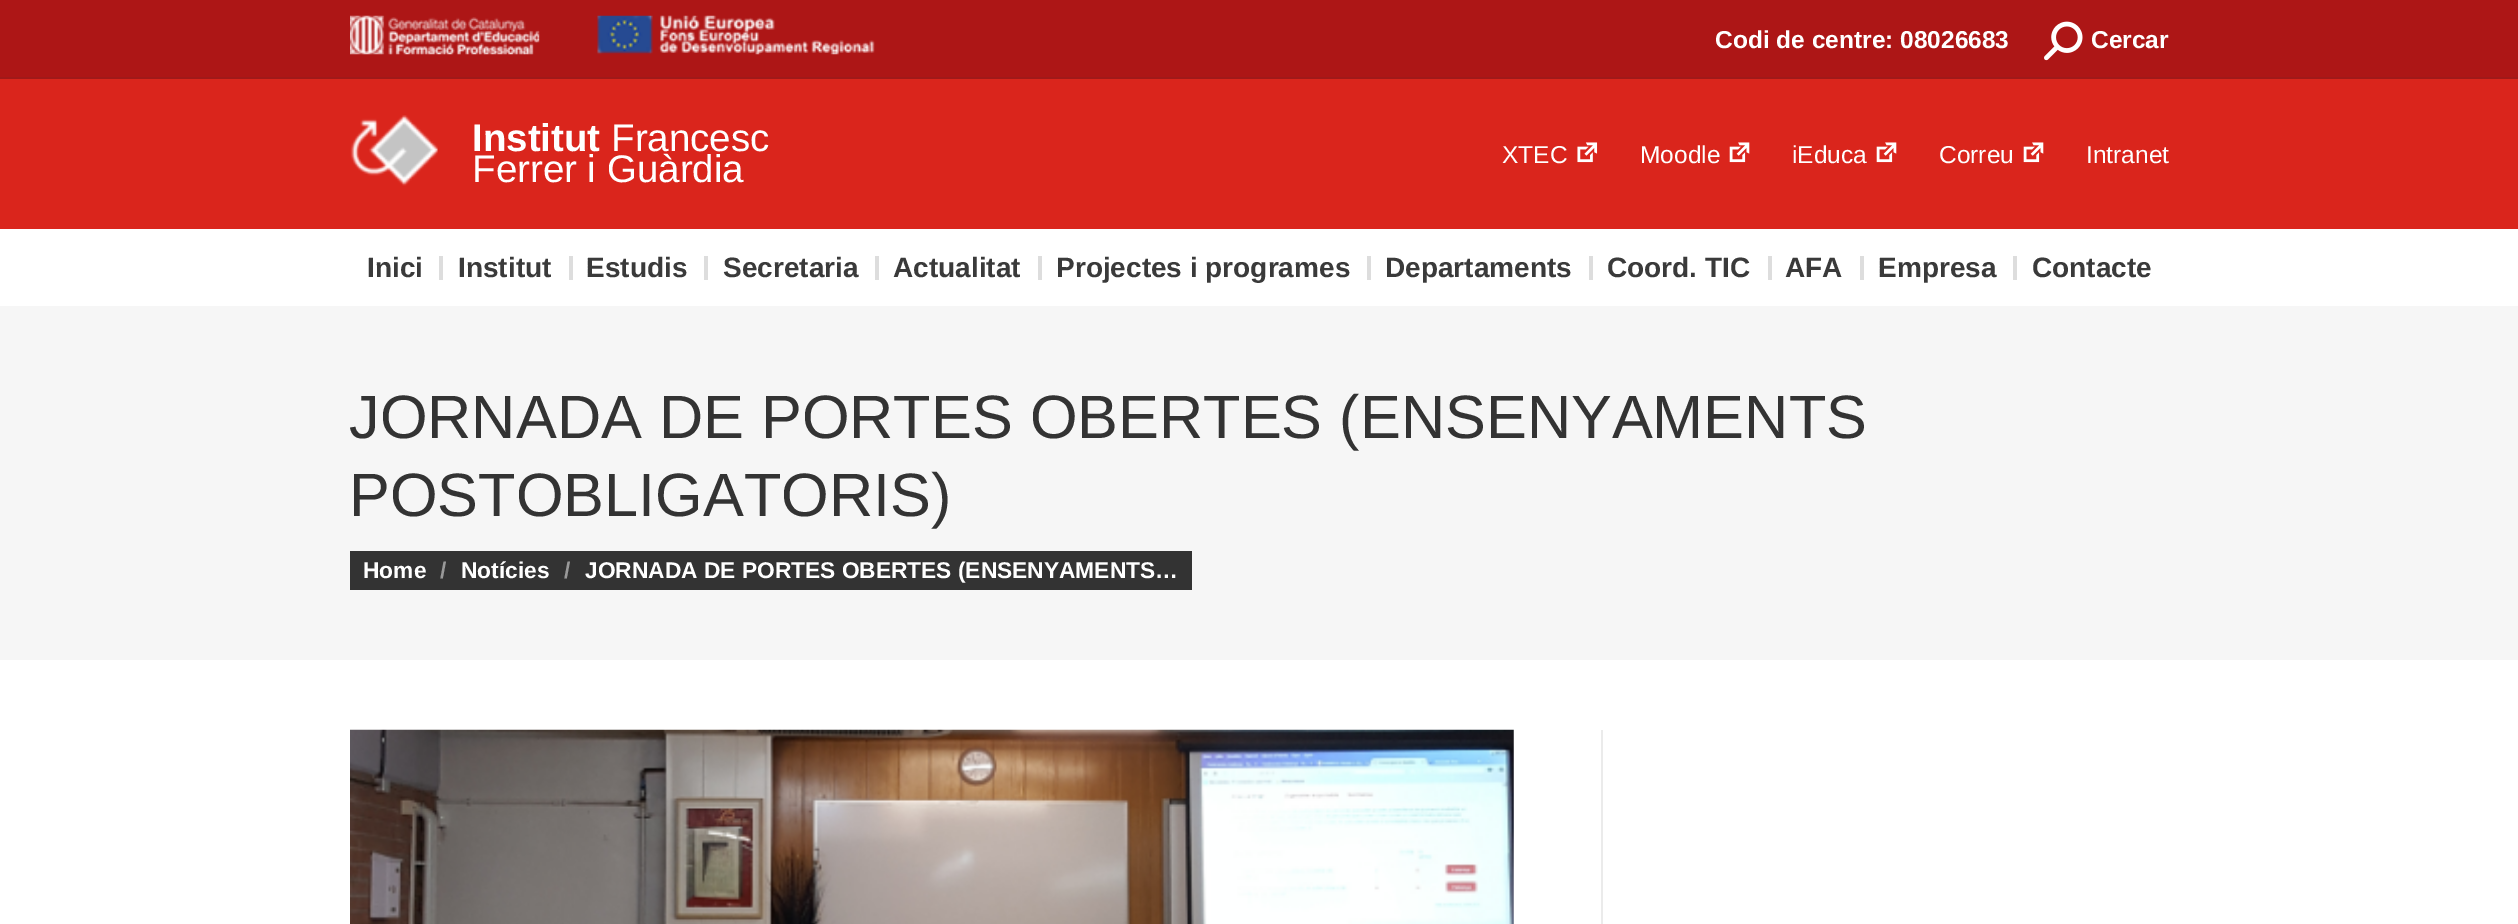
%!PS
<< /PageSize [2518 924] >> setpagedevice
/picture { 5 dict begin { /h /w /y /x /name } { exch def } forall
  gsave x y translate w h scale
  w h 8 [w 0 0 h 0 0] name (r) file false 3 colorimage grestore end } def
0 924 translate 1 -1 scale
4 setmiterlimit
1 setgray
0 0 2518 924 rectfill
0.855 0.145 0.11 setrgbcolor
0 79 2518 150 rectfill
0.678 0.086 0.086 setrgbcolor
0 0 2518 77 rectfill
(img1.rgb) 350 15 525 40 picture
/LiberationSans-Bold [24.5 0 0 -24.5 0 0] selectfont
1 setgray
1715 48 moveto (Codi de centre: 08026683) show
(img2.rgb) 2044 21 39 40 picture
2091 48 moveto (Cercar) show
0.627 0.098 0.098 setrgbcolor
0 77 2518 2 rectfill
(img3.rgb) 350 115 88 71 picture
/LiberationSans-Bold [38.5 0 0 -38.5 0 0] selectfont
1 setgray
472 151 moveto (Institut) show
/LiberationSans-Regular [38.5 0 0 -38.5 0 0] selectfont
611 151 moveto (Francesc) show
472 182 moveto (Ferrer i Guàrdia) show
/LiberationSans-Regular [24.5 0 0 -24.5 0 0] selectfont
1502 163 moveto (XTEC) show
(img4.rgb) 1577 142 21 21 picture
1640 163 moveto (Moodle) show
(img5.rgb) 1729 142 21 21 picture
1792 163 moveto (iEduca) show
(img5.rgb) 1876 142 21 21 picture
1939 163 moveto (Correu) show
(img5.rgb) 2023 142 21 21 picture
2086 163 moveto (Intranet) show
/LiberationSans-Bold [28 0 0 -28 0 0] selectfont
0.227 setgray
367 277 moveto (Inici) show
0.867 setgray
439 256 4 24 rectfill
0.227 setgray
458 277 moveto (Institut) show
0.867 setgray
569 256 4 24 rectfill
0.227 setgray
586 277 moveto (Estudis) show
0.867 setgray
704 256 4 24 rectfill
0.227 setgray
723 277 moveto (Secretaria) show
0.867 setgray
875 256 4 24 rectfill
0.227 setgray
893 277 moveto (Actualitat) show
0.867 setgray
1038 256 4 24 rectfill
0.227 setgray
1056 277 moveto (Projectes i programes) show
0.867 setgray
1367 256 4 24 rectfill
0.227 setgray
1385 277 moveto (Departaments) show
0.867 setgray
1589 256 4 24 rectfill
0.227 setgray
1607 277 moveto (Coord. TIC) show
0.867 setgray
1768 256 4 24 rectfill
0.227 setgray
1785 277 moveto (AFA) show
0.867 setgray
1860 256 4 24 rectfill
0.227 setgray
1878 277 moveto (Empresa) show
0.867 setgray
2013 256 4 24 rectfill
0.227 setgray
2032 277 moveto (Contacte) show
0.965 setgray
0 306 2518 354 rectfill
/LiberationSans-Regular [61.25 0 0 -61.25 0 0] selectfont
0.2 setgray
349 438 moveto (JORNADA DE PORTES OBERTES \(ENSENYAMENTS) show
349 516 moveto (POSTOBLIGATORIS\)) show
350 551 842 39 rectfill
/LiberationSans-Bold [22.75 0 0 -22.75 0 0] selectfont
1 setgray
363 578 moveto (Home) show
0.6 setgray
440 578 moveto (/) show
1 setgray
461 578 moveto (Notícies) show
0.6 setgray
564 578 moveto (/) show
1 setgray
585 578 moveto (JORNADA DE PORTES OBERTES \(ENSENYAMENTS…) show
(img6.rgb) 350 729 1164 195 picture
0.922 setgray
1601 730 2 194 rectfill
showpage
